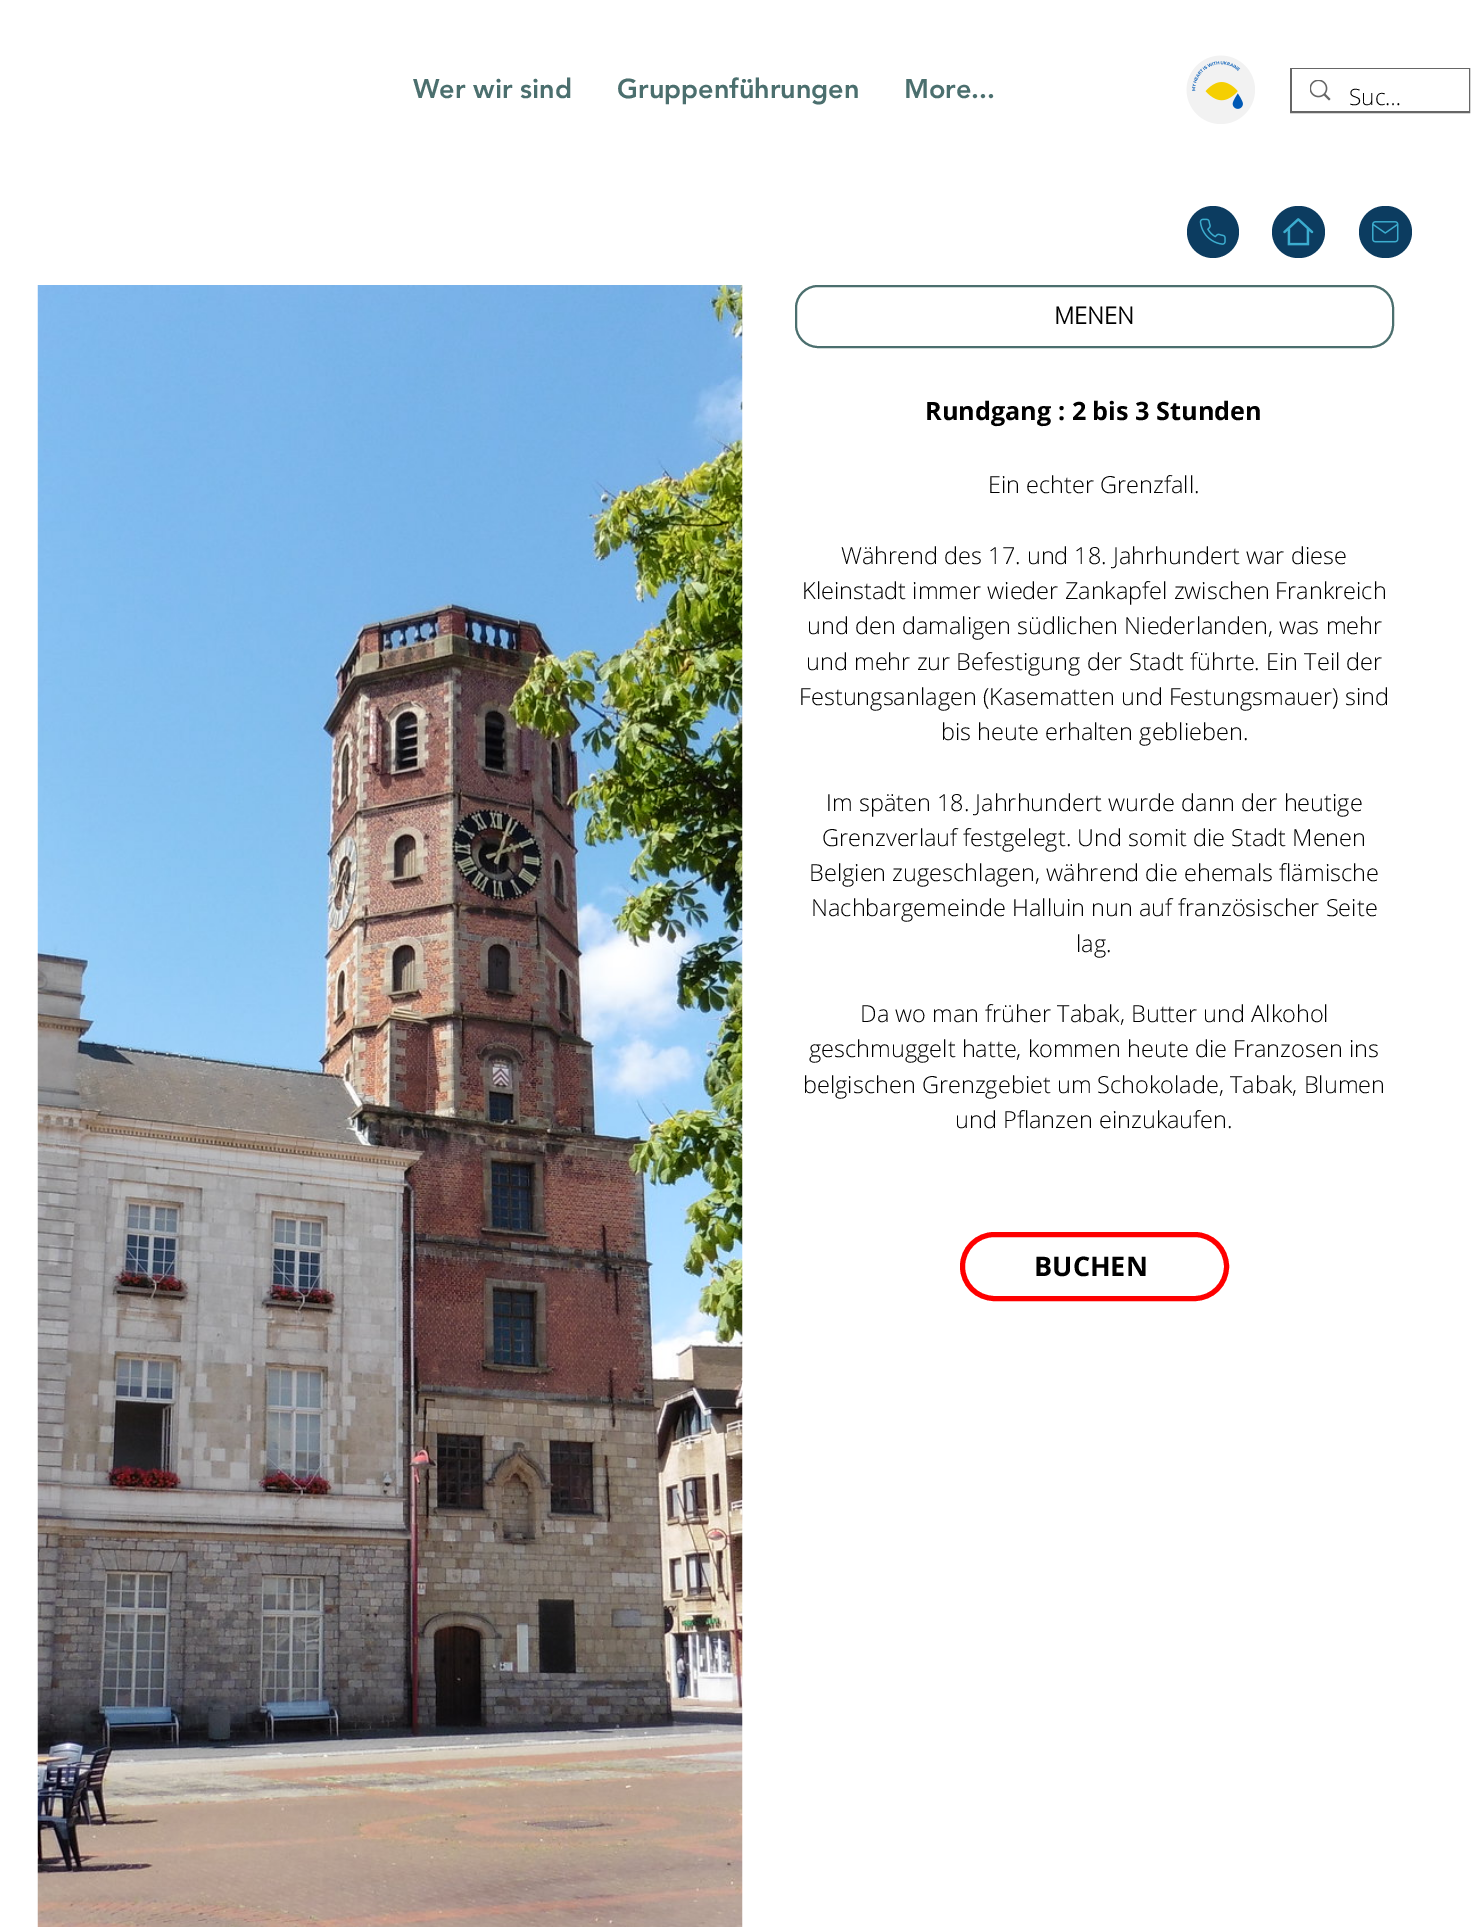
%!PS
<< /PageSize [1483 1927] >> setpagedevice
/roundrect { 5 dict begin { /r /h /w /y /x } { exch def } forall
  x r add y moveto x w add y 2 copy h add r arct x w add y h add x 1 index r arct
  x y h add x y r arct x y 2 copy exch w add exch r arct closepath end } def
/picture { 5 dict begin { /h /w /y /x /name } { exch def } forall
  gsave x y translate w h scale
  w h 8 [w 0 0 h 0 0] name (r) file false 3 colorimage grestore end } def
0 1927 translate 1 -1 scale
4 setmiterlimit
1 setgray
0 0 1483 1927 rectfill
/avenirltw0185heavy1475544-Black [27 0 0 -27 0 0] selectfont
0.294 0.435 0.431 setrgbcolor
413 98 moveto (Wer wir sind) show
617 98 moveto (Gruppenführungen) show
904 98 moveto (More...) show
(img1.rgb) 1186 55 69 69 picture
0.4 setgray
2 setlinewidth
1291 69 178 43 rectstroke
1 setgray
1292 69 177 42 rectfill
(img2.rgb) 1310 80 21 21 picture
/OpenSans-Light [22.5 0 0 -22.5 0 0] selectfont
0 setgray
1349 105 moveto (Suc…) show
0.047 0.235 0.376 setrgbcolor
newpath 1213 232 26 0 360 arc closepath fill
(img3.rgb) 1199 218 27 27 picture
1272 206 53 52 26 roundrect fill
(img4.rgb) 1283 218 31 28 picture
1359 206 53 52 26 roundrect fill
(img5.rgb) 1372 221 27 22 picture
(img6.rgb) 37 285 706 1642 picture
0.294 0.435 0.431 setrgbcolor
796 286 597 61 22 roundrect stroke
/OpenSans-Bold [23.5 0 0 -23.5 0 0] selectfont
0 setgray
1054 324 moveto (MENEN) show
/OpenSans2-Bold [25.25 0 0 -25.25 0 0] selectfont
925 420 moveto (Rundgang : 2 bis 3 Stunden) show
/OpenSans-Light [23.5 0 0 -23.5 0 0] selectfont
988 493 moveto (Ein echter Grenzfall.) show
841 564 moveto (Während des 17. und 18. Jahrhundert war diese) show
802 599 moveto (Kleinstadt immer wieder Zankapfel zwischen Frankreich) show
807 634 moveto (und den damaligen südlichen Niederlanden, was mehr) show
806 670 moveto (und mehr zur Befestigung der Stadt führte. Ein Teil der) show
799 705 moveto (Festungsanlagen \(Kasematten und Festungsmauer\) sind) show
941 740 moveto (bis heute erhalten geblieben.) show
826 811 moveto (Im späten 18. Jahrhundert wurde dann der heutige) show
822 846 moveto (Grenzverlauf festgelegt. Und somit die Stadt Menen) show
809 881 moveto (Belgien zugeschlagen, während die ehemals flämische) show
811 916 moveto (Nachbargemeinde Halluin nun auf französischer Seite) show
1076 952 moveto (lag.) show
860 1022 moveto (Da wo man früher Tabak, Butter und Alkohol) show
809 1057 moveto (geschmuggelt hatte, kommen heute die Franzosen ins) show
803 1093 moveto (belgischen Grenzgebiet um Schokolade, Tabak, Blumen) show
955 1128 moveto (und Pflanzen einzukaufen.) show
0.996 0 0 setrgbcolor
5 setlinewidth
962.5 1234.5 264 64 32 roundrect stroke
/OpenSans2-Bold [27 0 0 -27 0 0] selectfont
0 setgray
1034 1276 moveto (BUCHEN) show
showpage
